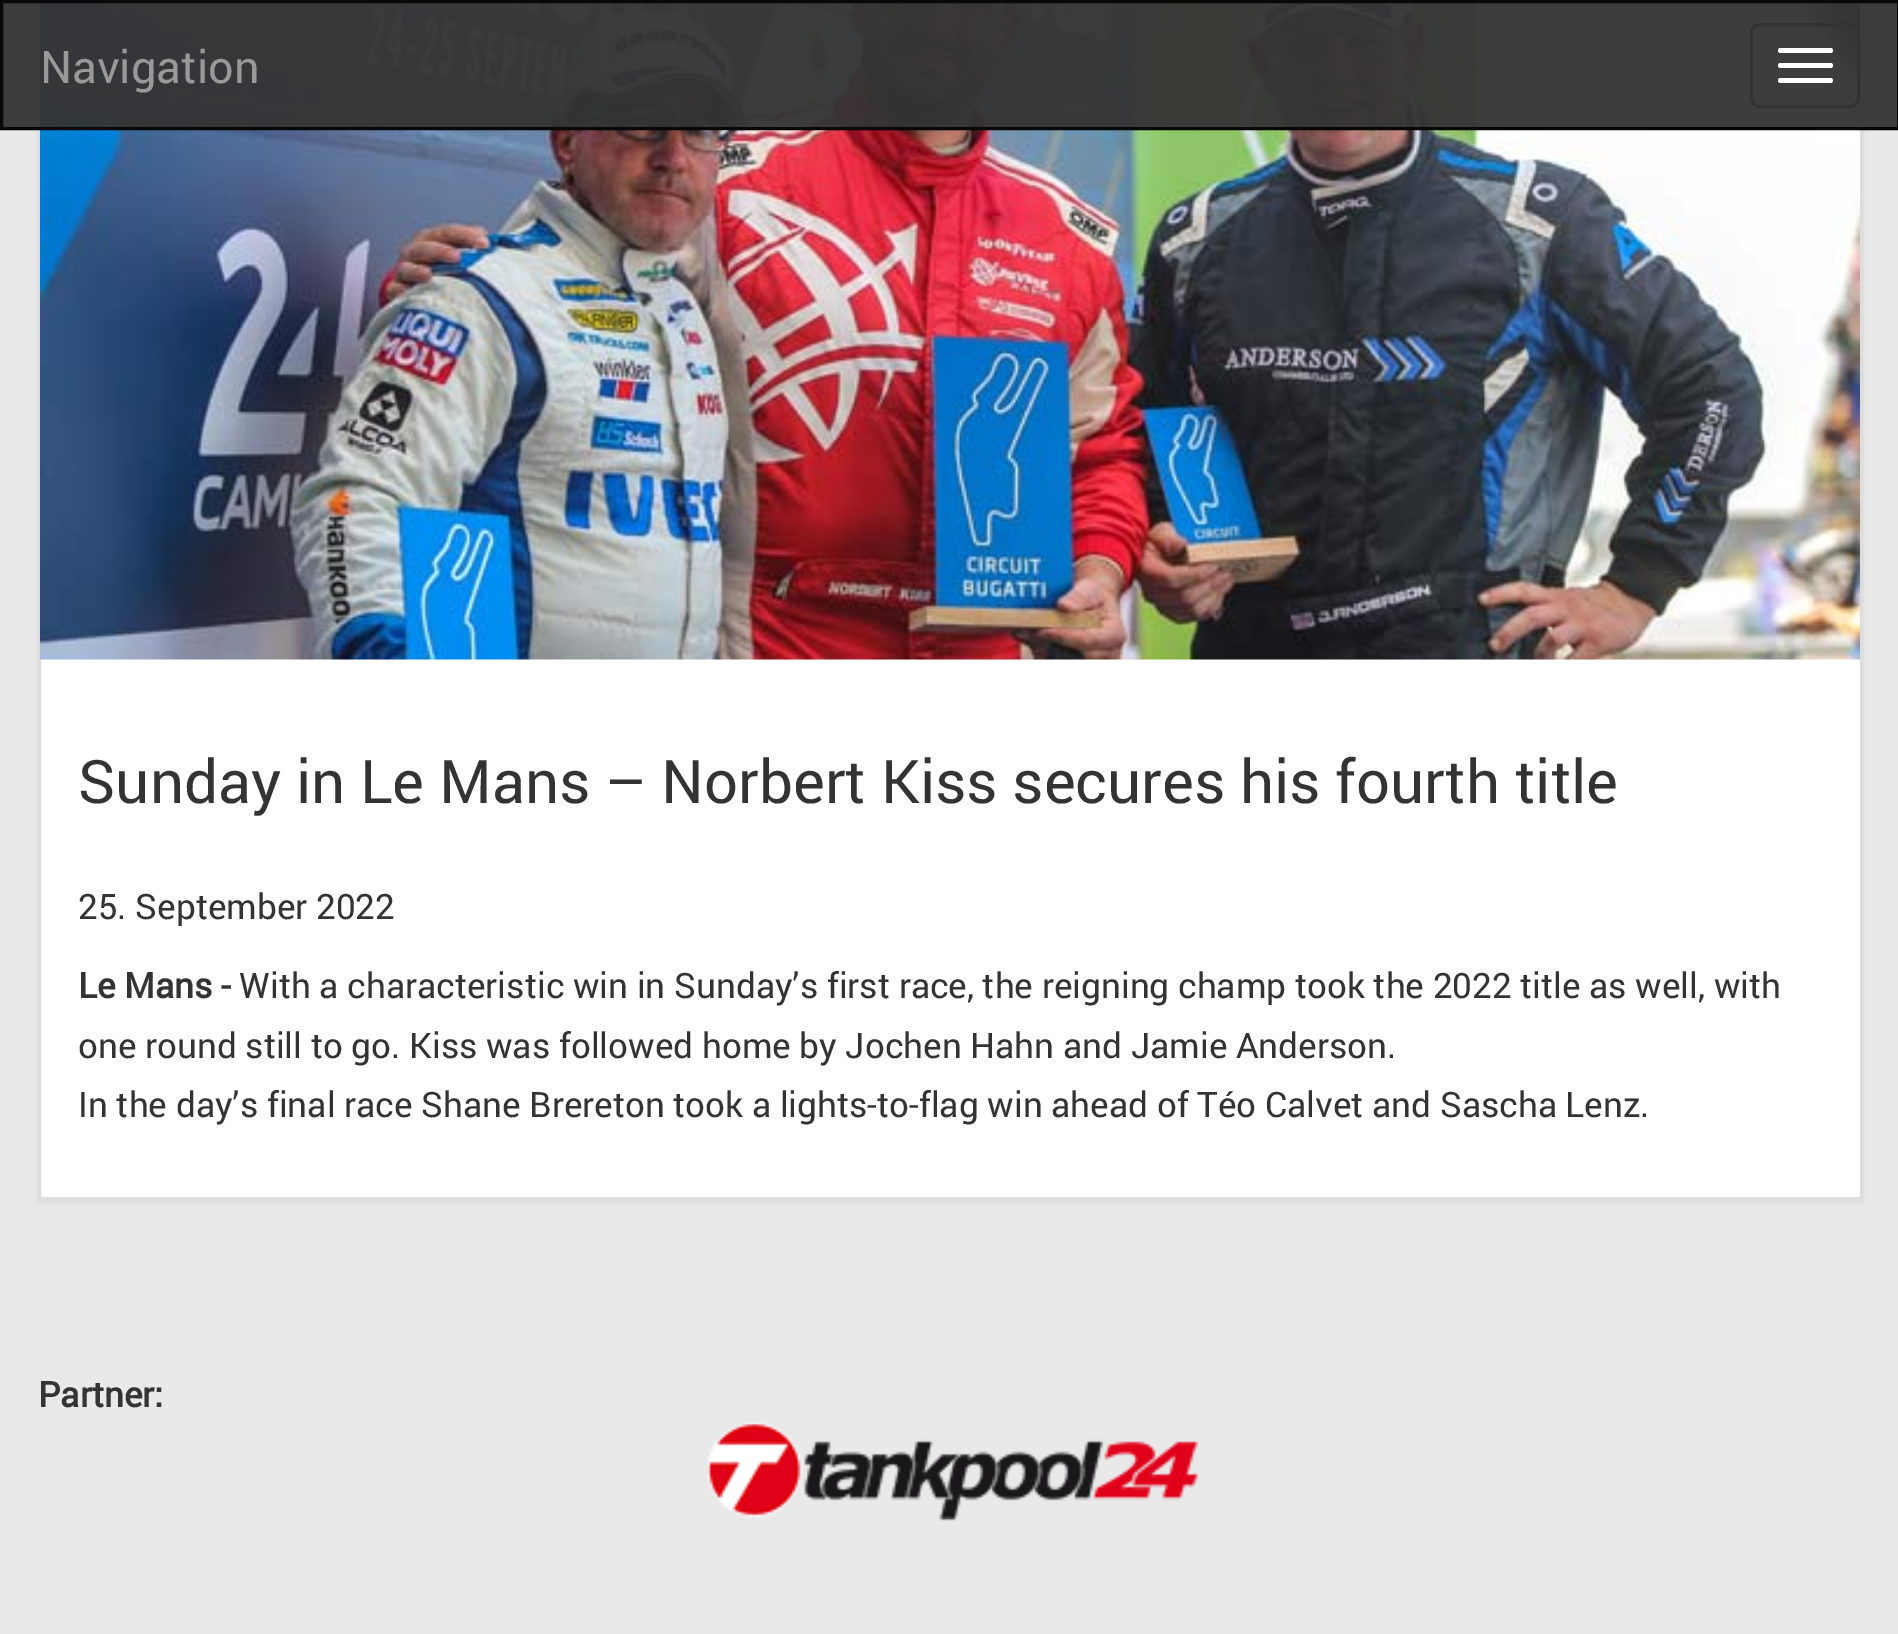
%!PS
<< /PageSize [1898 1634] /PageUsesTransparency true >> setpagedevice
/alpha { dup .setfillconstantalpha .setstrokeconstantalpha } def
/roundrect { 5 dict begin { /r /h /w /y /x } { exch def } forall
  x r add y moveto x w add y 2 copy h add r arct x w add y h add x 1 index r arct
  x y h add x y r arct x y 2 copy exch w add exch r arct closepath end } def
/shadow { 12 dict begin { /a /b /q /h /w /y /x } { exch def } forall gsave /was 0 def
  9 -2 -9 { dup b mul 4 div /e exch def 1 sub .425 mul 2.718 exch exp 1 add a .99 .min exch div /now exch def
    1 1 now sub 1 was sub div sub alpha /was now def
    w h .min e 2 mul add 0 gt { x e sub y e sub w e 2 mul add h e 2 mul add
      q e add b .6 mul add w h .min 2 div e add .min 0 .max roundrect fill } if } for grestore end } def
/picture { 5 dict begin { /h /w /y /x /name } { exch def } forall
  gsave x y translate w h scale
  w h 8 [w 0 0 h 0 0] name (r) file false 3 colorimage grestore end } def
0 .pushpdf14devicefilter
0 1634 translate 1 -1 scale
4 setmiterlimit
0.914 setgray
0 0 1898 1634 rectfill
0 setgray
38 -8 1825 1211 0 2.5 0.05 shadow
1 setgray
41 659 1819 538 rectfill
0.867 setgray
3 setlinewidth
39.5 -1.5 1822 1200 rectstroke
(img1.rgb) 40 3 1820 657 picture
0.95 alpha
0.2 setgray
newpath 1.5 1.5 moveto 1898.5 1.5 lineto 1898.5 128.5 lineto 1.5 128.5 lineto closepath fill
1 alpha
0.031 setgray
newpath 1.5 1.5 moveto 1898.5 1.5 lineto 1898.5 128.5 lineto 1.5 128.5 lineto closepath stroke
/Roboto-Regular [45 0 0 -45 0 0] selectfont
0.6 setgray
40 83 moveto (Navigation) show
0.2 setgray
1751.5 24.5 107 82 8.5 roundrect stroke
1 setgray
1778 48 55 5 2.5 roundrect fill
1778 63 55 5 2.5 roundrect fill
1778 78 55 5 2.5 roundrect fill
/Roboto-Regular [60 0 0 -60 0 0] selectfont
0.2 setgray
78 803 moveto (Sunday in Le Mans – Norbert Kiss secures his fourth title) show
/Roboto-Regular [35 0 0 -35 0 0] selectfont
78 919 moveto (25. September 2022) show
/Roboto-Bold [35 0 0 -35 0 0] selectfont
78 998 moveto (Le Mans -) show
/Roboto-Regular [35 0 0 -35 0 0] selectfont
239 998 moveto (With a characteristic win in Sunday’s first race, the reigning champ took the 2022 title as well, with) show
78 1058 moveto (one round still to go. Kiss was followed home by Jochen Hahn and Jamie Anderson.) show
78 1117 moveto (In the day’s final race Shane Brereton took a lights-to-flag win ahead of Téo Calvet and Sascha Lenz.) show
/Roboto-Bold [35 0 0 -35 0 0] selectfont
38 1407 moveto (Partner:) show
(img2.rgb) 707 1422 492 99 picture
.poppdf14devicefilter showpage
